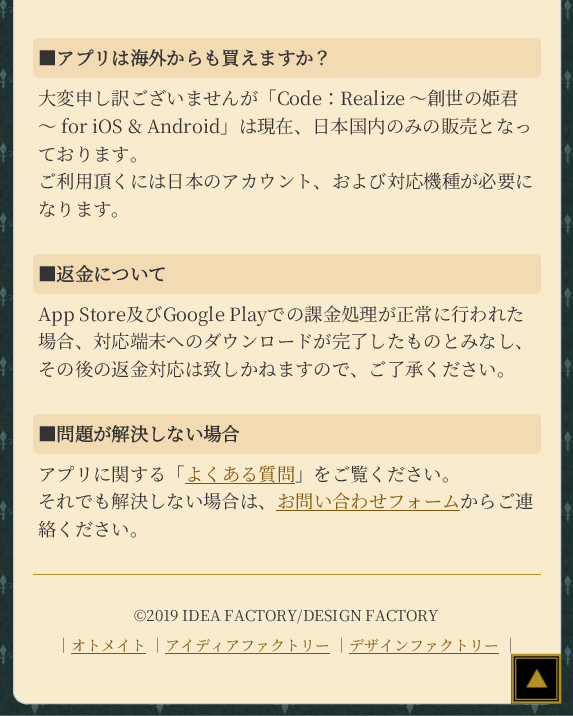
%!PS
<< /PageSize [573 716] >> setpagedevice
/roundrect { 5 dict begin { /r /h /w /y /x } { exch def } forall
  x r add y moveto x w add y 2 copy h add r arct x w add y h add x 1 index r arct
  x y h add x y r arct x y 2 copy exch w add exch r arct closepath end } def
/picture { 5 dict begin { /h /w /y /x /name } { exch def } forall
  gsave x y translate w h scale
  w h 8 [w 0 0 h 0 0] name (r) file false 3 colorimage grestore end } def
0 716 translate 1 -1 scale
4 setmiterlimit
1 setgray
0 0 573 716 rectfill
(img1.rgb) 0 0 573 716 picture
0.976 0.922 0.808 setrgbcolor
13.5 -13.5 547 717 12.5 roundrect gsave fill grestore
0.8 setgray
stroke
0.949 0.859 0.702 setrgbcolor
33 38 508 40 6 roundrect fill
/NotoSerifJP-Bold [18.35 0 0 -18.35 0 0] selectfont
0.2 setgray
38 65 moveto (■アプリは海外からも買えますか？) show
/NotoSerifJP-ExtraLight [18.35 0 0 -18.35 0 0] selectfont
38 105 moveto -1 0 32 (大変申し訳ございませんが「Code：Realize ～創世の姫君) widthshow
38 133 moveto (～ for iOS & Android」は現在、日本国内のみの販売となっ) show
38 161 moveto (ております。) show
38 188 moveto (ご利用頂くには日本のアカウント、および対応機種が必要に) show
38 216 moveto (なります。) show
0.949 0.859 0.702 setrgbcolor
33 254 508 40 6 roundrect fill
/NotoSerifJP-Bold [18.35 0 0 -18.35 0 0] selectfont
0.2 setgray
38 281 moveto (■返金について) show
/NotoSerifJP-ExtraLight [18.35 0 0 -18.35 0 0] selectfont
38 321 moveto (App Store及びGoogle Playでの課金処理が正常に行われた) show
38 348 moveto (場合、対応端末へのダウンロードが完了したものとみなし、) show
38 376 moveto (その後の返金対応は致しかねますので、ご了承ください。) show
0.949 0.859 0.702 setrgbcolor
33 414 508 40 6 roundrect fill
/NotoSerifJP-Bold [18.35 0 0 -18.35 0 0] selectfont
0.2 setgray
38 441 moveto (■問題が解決しない場合) show
/NotoSerifJP-ExtraLight [18.35 0 0 -18.35 0 0] selectfont
38 481 moveto (アプリに関する「) show
0.51 0.337 0.039 setrgbcolor
185 481 moveto (よくある質問) show
185 483 110 1 rectfill
0.2 setgray
295 481 moveto (」をご覧ください。) show
38 508 moveto (それでも解決しない場合は、) show
0.51 0.337 0.039 setrgbcolor
277 508 moveto (お問い合わせフォーム) show
276 510 184 1 rectfill
0.2 setgray
460 508 moveto (からご連) show
38 536 moveto (絡ください。) show
0.698 0.573 0.137 setrgbcolor
33 574 508 1 rectfill
/NotoSerifJP-ExtraLight [15 0 0 -15 0 0] selectfont
0.2 setgray
134 621 moveto (©2019 IDEA FACTORY/DESIGN FACTORY) show
56 651 moveto (│) show
0.51 0.337 0.039 setrgbcolor
71 651 moveto (オトメイト) show
71 653 75 1 rectfill
0.2 setgray
150 651 moveto (│) show
0.51 0.337 0.039 setrgbcolor
165 651 moveto (アイディアファクトリー) show
165 653 165 1 rectfill
0.2 setgray
334 651 moveto (│) show
0.51 0.337 0.039 setrgbcolor
349 651 moveto (デザインファクトリー) show
349 653 150 1 rectfill
0.2 setgray
503 651 moveto (│) show
0 setgray
511 654 50 50 rectfill
(img2.rgb) 511 653 51 51 picture
showpage
